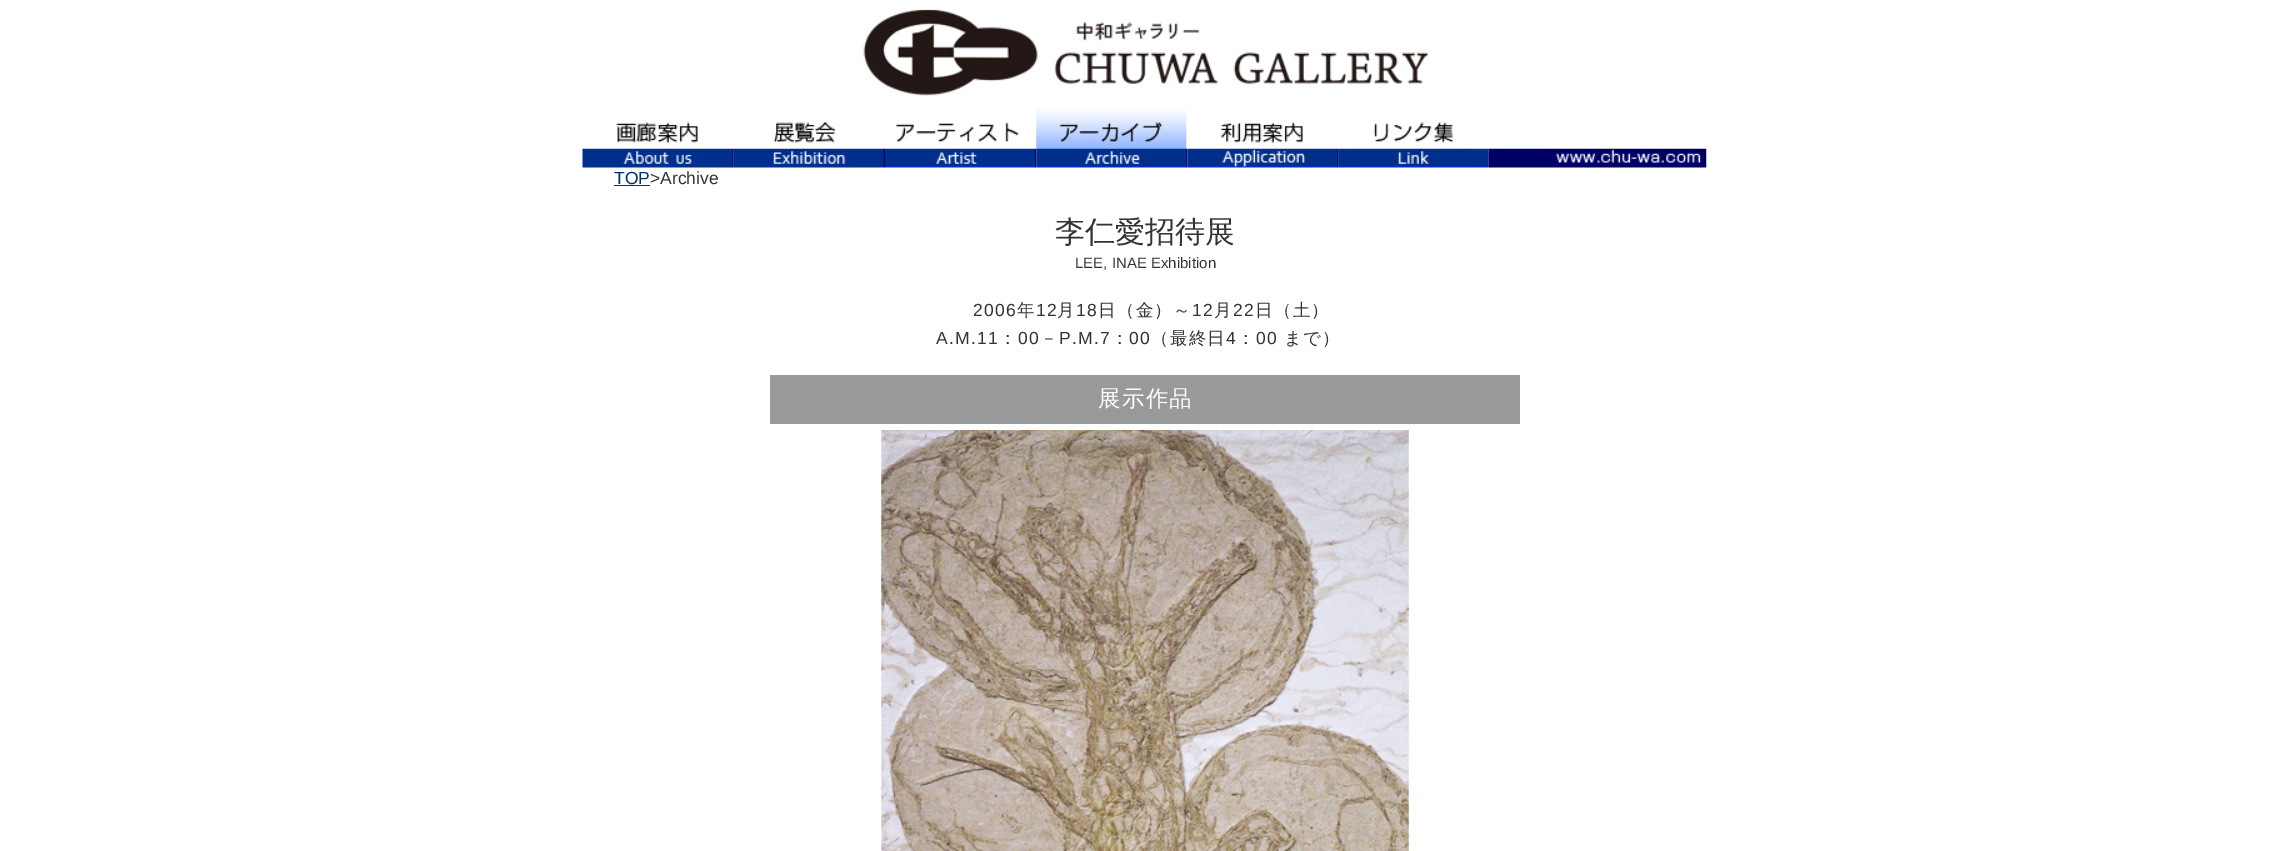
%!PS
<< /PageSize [2290 851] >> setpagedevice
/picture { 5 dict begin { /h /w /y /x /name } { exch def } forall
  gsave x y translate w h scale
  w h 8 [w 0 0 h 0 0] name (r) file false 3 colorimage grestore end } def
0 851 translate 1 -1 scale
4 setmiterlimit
1 setgray
0 0 2290 851 rectfill
(img1.rgb) 863 9 565 87 picture
(img2.rgb) 582 122 152 46 picture
(img3.rgb) 733 122 152 46 picture
(img4.rgb) 885 122 152 46 picture
(img5.rgb) 1036 109 152 59 picture
(img6.rgb) 1187 122 152 46 picture
(img7.rgb) 1338 122 151 46 picture
(img8.rgb) 1488 145 219 23 picture
/LiberationSans-Regular [17.5 0 0 -17.5 0 0] selectfont
0 0.2 0.4 setrgbcolor
614 184 moveto (TOP) show
614 185 36 1 rectfill
0.2 setgray
650 184 moveto (>Archive) show
/WenQuanYiZenHei-Medium [30 0 0 -30 0 0] selectfont
1055 242 moveto (李仁愛招待展) show
/LiberationSans-Regular [15 0 0 -15 0 0] selectfont
1075 268 moveto (LEE, INAE Exhibition) show
/LiberationSans-Regular [17.5 0 0 -17.5 0 0] selectfont
973 316 moveto 1.25 0 (2006) ashow
/WenQuanYiZenHei-Medium [17.5 0 0 -17.5 0 0] selectfont
1017 316 moveto 1.25 0 (年) ashow
/LiberationSans-Regular [17.5 0 0 -17.5 0 0] selectfont
1036 316 moveto 1.25 0 (12) ashow
/WenQuanYiZenHei-Medium [17.5 0 0 -17.5 0 0] selectfont
1057 316 moveto 1.25 0 (月) ashow
/LiberationSans-Regular [17.5 0 0 -17.5 0 0] selectfont
1076 316 moveto 1.25 0 (18) ashow
/WenQuanYiZenHei-Medium [17.5 0 0 -17.5 0 0] selectfont
1098 316 moveto 1.25 0 (日（金）～) ashow
/LiberationSans-Regular [17.5 0 0 -17.5 0 0] selectfont
1192 316 moveto 1.25 0 (12) ashow
/WenQuanYiZenHei-Medium [17.5 0 0 -17.5 0 0] selectfont
1214 316 moveto 1.25 0 (月) ashow
/LiberationSans-Regular [17.5 0 0 -17.5 0 0] selectfont
1233 316 moveto 1.25 0 (22) ashow
/WenQuanYiZenHei-Medium [17.5 0 0 -17.5 0 0] selectfont
1255 316 moveto 1.25 0 (日（土）) ashow
/LiberationSans-Regular [17.5 0 0 -17.5 0 0] selectfont
936 344 moveto 1.25 0 (A.M.11) ashow
/WenQuanYiZenHei-Medium [17.5 0 0 -17.5 0 0] selectfont
999 344 moveto 1.25 0 (：) ashow
/LiberationSans-Regular [17.5 0 0 -17.5 0 0] selectfont
1018 344 moveto 1.25 0 (00) ashow
/WenQuanYiZenHei-Medium [17.5 0 0 -17.5 0 0] selectfont
1040 344 moveto 1.25 0 (－) ashow
/LiberationSans-Regular [17.5 0 0 -17.5 0 0] selectfont
1059 344 moveto 1.25 0 (P.M.7) ashow
/WenQuanYiZenHei-Medium [17.5 0 0 -17.5 0 0] selectfont
1111 344 moveto 1.25 0 (：) ashow
/LiberationSans-Regular [17.5 0 0 -17.5 0 0] selectfont
1129 344 moveto 1.25 0 (00) ashow
/WenQuanYiZenHei-Medium [17.5 0 0 -17.5 0 0] selectfont
1151 344 moveto 1.25 0 (（最終日) ashow
/LiberationSans-Regular [17.5 0 0 -17.5 0 0] selectfont
1226 344 moveto 1.25 0 (4) ashow
/WenQuanYiZenHei-Medium [17.5 0 0 -17.5 0 0] selectfont
1237 344 moveto 1.25 0 (：) ashow
/LiberationSans-Regular [17.5 0 0 -17.5 0 0] selectfont
1256 344 moveto 1.25 0 (00) ashow
/WenQuanYiZenHei-Medium [17.5 0 0 -17.5 0 0] selectfont
1284 344 moveto 1.25 0 (まで）) ashow
0.6 setgray
770 375 750 49 rectfill
/WenQuanYiZenHei-Medium [22.5 0 0 -22.5 0 0] selectfont
1 setgray
1098 406 moveto 1.25 0 (展示作品) ashow
(img9.rgb) 881 430 528 421 picture
showpage
